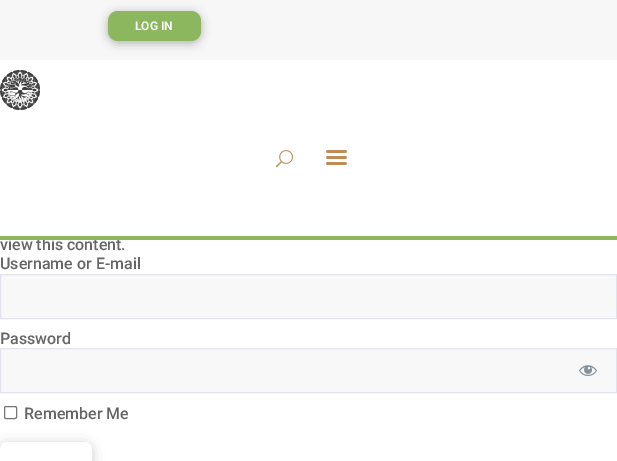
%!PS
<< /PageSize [617 461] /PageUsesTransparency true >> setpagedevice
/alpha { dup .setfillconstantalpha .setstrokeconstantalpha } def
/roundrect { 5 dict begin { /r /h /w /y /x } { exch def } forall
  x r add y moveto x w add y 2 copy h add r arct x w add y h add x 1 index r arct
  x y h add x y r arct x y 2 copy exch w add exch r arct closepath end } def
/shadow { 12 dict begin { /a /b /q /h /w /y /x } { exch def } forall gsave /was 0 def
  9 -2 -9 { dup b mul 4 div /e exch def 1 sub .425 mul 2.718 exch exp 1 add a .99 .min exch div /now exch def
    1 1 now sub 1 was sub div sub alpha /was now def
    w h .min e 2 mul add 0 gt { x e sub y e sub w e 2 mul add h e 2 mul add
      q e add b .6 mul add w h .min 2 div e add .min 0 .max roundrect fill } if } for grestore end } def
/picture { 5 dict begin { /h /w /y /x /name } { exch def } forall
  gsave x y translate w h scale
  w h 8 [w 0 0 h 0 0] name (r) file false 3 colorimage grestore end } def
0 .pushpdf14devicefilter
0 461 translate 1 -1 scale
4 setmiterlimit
1 setgray
0 0 617 461 rectfill
0.969 setgray
0 0 617 60 rectfill
0 setgray
108 13 93 30 10 5 0.3 shadow
0.549 0.718 0.369 setrgbcolor
108 11 93 30 10 roundrect fill
/Roboto-SemiBold [12 0 0 -12 0 0] selectfont
1 setgray
135 30 moveto (LOG IN) show
/Roboto-Medium [16 0 0 -16 0 0] selectfont
0.4 setgray
0 250 moveto (view this content.) show
0.549 0.718 0.369 setrgbcolor
0 236 617 4 rectfill
(img1.rgb) 0 70 40 40 picture
(img2.rgb) 276 150 17 18 picture
(img3.rgb) 326 150 21 15 picture
0.4 setgray
0 269 moveto (Username or E-mail) show
0.973 setgray
newpath 0.5 274.5 moveto 616.5 274.5 lineto 616.5 318.5 lineto 0.5 318.5 lineto closepath gsave fill grestore
0.89 0.89 0.941 setrgbcolor
stroke
0.4 setgray
0 344 moveto (Password) show
0.973 setgray
newpath 0.5 348.5 moveto 616.5 348.5 lineto 616.5 392.5 lineto 0.5 392.5 lineto closepath gsave fill grestore
0.89 0.89 0.941 setrgbcolor
stroke
(img4.rgb) 579 365 18 12 picture
0.463 setgray
4.5 406.5 12 12 1.5 roundrect stroke
0.4 setgray
24 419 moveto (Remember Me) show
0 setgray
2 446 88 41 6 7 0.3 shadow
1 setgray
0 442 92 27 8 roundrect fill
.poppdf14devicefilter showpage
